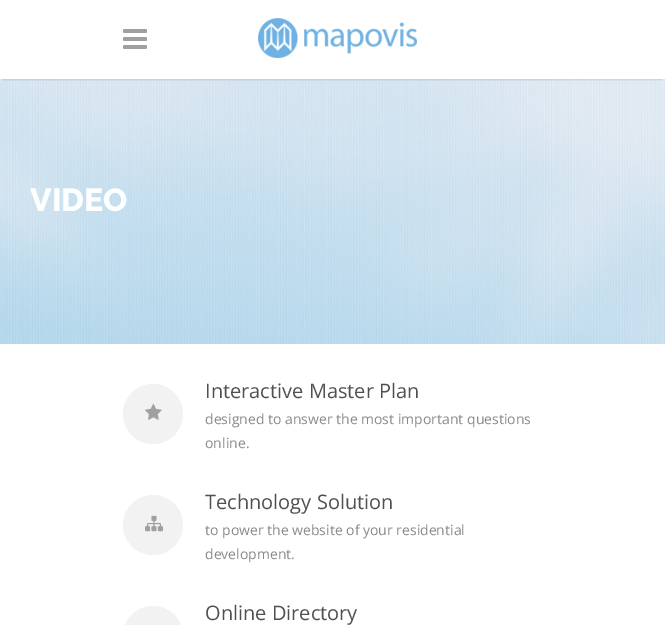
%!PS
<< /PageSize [665 625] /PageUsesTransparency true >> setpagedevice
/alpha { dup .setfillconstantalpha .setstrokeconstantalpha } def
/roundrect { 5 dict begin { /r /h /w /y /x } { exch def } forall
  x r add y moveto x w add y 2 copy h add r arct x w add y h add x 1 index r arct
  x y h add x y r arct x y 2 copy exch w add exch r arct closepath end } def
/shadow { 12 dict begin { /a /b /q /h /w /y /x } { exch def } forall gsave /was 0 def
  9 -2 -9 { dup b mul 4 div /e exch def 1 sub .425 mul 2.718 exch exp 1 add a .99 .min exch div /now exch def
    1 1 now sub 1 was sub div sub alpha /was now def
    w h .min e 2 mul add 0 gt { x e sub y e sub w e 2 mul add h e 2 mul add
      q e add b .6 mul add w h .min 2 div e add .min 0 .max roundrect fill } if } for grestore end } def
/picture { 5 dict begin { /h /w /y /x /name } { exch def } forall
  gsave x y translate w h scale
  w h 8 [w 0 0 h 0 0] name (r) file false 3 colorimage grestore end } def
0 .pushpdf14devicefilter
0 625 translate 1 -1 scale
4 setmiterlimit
1 setgray
0 0 665 625 rectfill
(img3.rgb) 0 79 665 265 picture
gsave
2 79 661 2 rectclip
0 setgray
3 6 659 73 0 1.5 0.2 shadow
grestore
(img1.rgb) 123 29 24 20 picture
(img2.rgb) 258 18 159 40 picture
/Raleway-Thin [32 0 0 -32 0 0] selectfont
0.996 1 1 setrgbcolor
30 211 moveto (VIDEO) show
0.949 setgray
newpath 153 414 30 0 360 arc closepath fill
(img4.rgb) 145 404 17 16 picture
/OpenSans-Regular [20 0 0 -20 0 0] selectfont
0.314 setgray
205 398 moveto (Interactive Master Plan) show
/OpenSans-Regular [14 0 0 -14 0 0] selectfont
0.533 setgray
205 424 moveto (designed to answer the most important questions) show
205 448 moveto (online.) show
0.949 setgray
newpath 153 525 30 0 360 arc closepath fill
(img5.rgb) 145 515 18 17 picture
/OpenSans-Regular [20 0 0 -20 0 0] selectfont
0.314 setgray
205 509 moveto (Technology Solution) show
/OpenSans-Regular [14 0 0 -14 0 0] selectfont
0.533 setgray
205 535 moveto (to power the website of your residential) show
205 559 moveto (development.) show
0.949 setgray
123 606 60 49 30 roundrect fill
/OpenSans-Regular [20 0 0 -20 0 0] selectfont
0.314 setgray
205 620 moveto (Online Directory) show
.poppdf14devicefilter showpage
